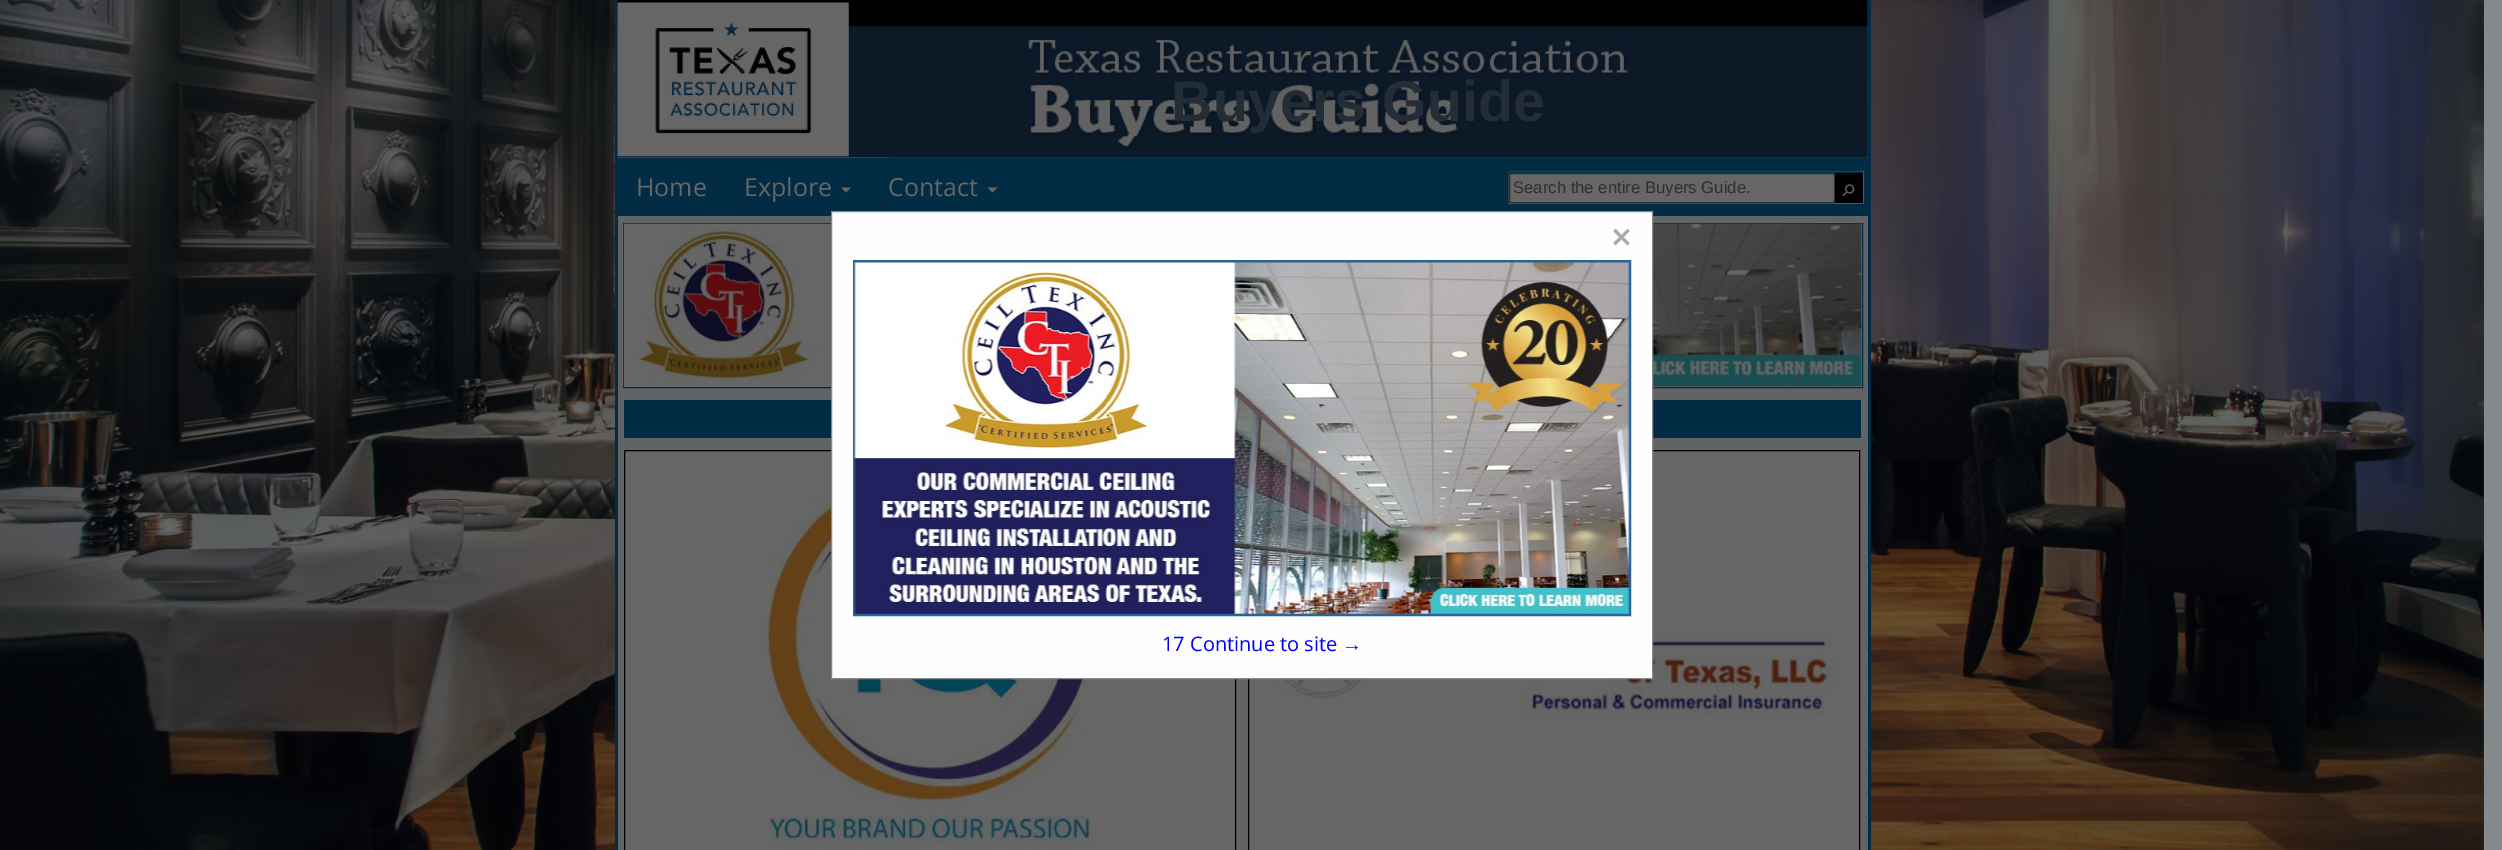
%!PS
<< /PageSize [2502 850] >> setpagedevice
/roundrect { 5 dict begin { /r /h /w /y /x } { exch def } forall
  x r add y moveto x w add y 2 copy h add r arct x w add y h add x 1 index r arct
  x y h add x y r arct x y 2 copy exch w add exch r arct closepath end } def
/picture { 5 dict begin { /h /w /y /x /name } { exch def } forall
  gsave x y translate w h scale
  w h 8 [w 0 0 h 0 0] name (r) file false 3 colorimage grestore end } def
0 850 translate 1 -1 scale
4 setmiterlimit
0.518 0.537 0.549 setrgbcolor
0 0 2502 850 rectfill
(img1.rgb) 0 0 2484 850 picture
0.384 0.388 0.396 setrgbcolor
618 0 1250 850 rectfill
0.008 0.173 0.263 setrgbcolor
1868 0 3 850 rectfill
615 0 3 850 rectfill
(img2.rgb) 617 0 1251 158 picture
(img3.rgb) 617 2 232 155 picture
(img4.rgb) 890 0 978 158 picture
/LiberationSans-Bold [57.5 0 0 -57.5 0 0] selectfont
0.137 0.173 0.216 setrgbcolor
1171 121 moveto (Buyers Guide) show
0.008 0.173 0.263 setrgbcolor
618 158 1250 58 rectfill
/OpenSans-Regular [25 0 0 -25 0 0] selectfont
0.4 setgray
636 196 moveto (Home) show
744 196 moveto (Explore) show
newpath 841 187.5 moveto 851 187.5 lineto 846 192.5 lineto closepath fill
888 196 moveto (Contact) show
newpath 987.5 187.5 moveto 997.5 187.5 lineto 992.5 192.5 lineto closepath fill
0.224 setgray
1508 171 356 1 rectfill
0.337 setgray
1863 171 1 33 rectfill
1508 203 356 1 rectfill
0.224 setgray
1508 171 1 33 rectfill
0.4 setgray
1509.5 173.5 325 29 2 roundrect gsave fill grestore
0.184 setgray
stroke
gsave
1514 178 316 18 rectclip
/LiberationSans-Regular [16.7 0 0 -16.7 0 0] selectfont
1513 193 moveto (Search the entire Buyers Guide.) show
grestore
0 setgray
1835 173 28 30 rectfill
/DejaVuSans-Regular [16.7 0 0 -16.7 0 0] selectfont
0.4 setgray
gsave 1840 190 translate 45 rotate 0 0 moveto (⚲) show grestore
0.008 0.173 0.263 setrgbcolor
623.5 223.5 1239 164 rectstroke
(img5.rgb) 623 223 1239 164 picture
624 400 1237 38 rectfill
0.4 setgray
newpath 624.5 450.5 moveto 1235.5 450.5 lineto 1235.5 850.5 lineto 624.5 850.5 lineto closepath gsave fill grestore
0 setgray
stroke
(img7.rgb) 760 459 331 391 picture
0.4 setgray
newpath 1248.5 450.5 moveto 1859.5 450.5 lineto 1859.5 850.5 lineto 1248.5 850.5 lineto closepath gsave fill grestore
0 setgray
stroke
(img8.rgb) 1273 596 561 121 picture
0.996 setgray
newpath 831.5 211.5 moveto 1652.5 211.5 lineto 1652.5 678.5 lineto 831.5 678.5 lineto closepath gsave fill grestore
0.533 setgray
stroke
/OpenSans-Bold [35 0 0 -35 0 0] selectfont
0.667 setgray
1611 250 moveto (×) show
0.165 0.392 0.588 setrgbcolor
3 setlinewidth
854.5 261.5 775 353 rectstroke
(img6.rgb) 854 262 776 352 picture
/OpenSans-Regular [20 0 0 -20 0 0] selectfont
0 0 1 setrgbcolor
1162 651 moveto (17 Continue to site) show
/LiberationSans-Regular [20 0 0 -20 0 0] selectfont
1342 651 moveto (→) show
showpage
